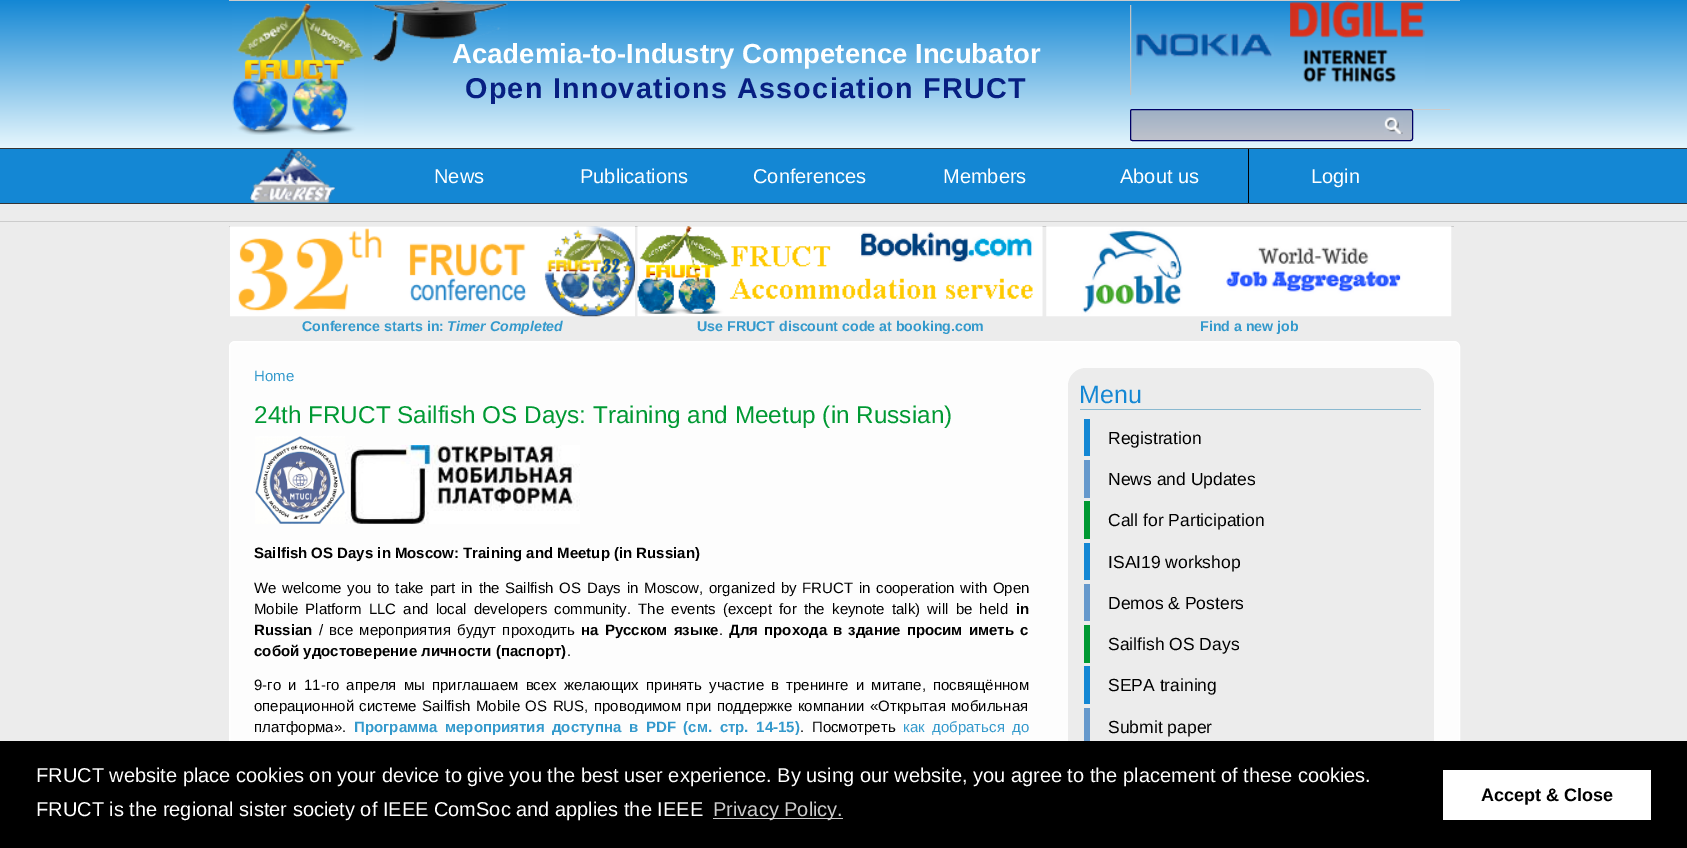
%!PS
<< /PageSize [1687 848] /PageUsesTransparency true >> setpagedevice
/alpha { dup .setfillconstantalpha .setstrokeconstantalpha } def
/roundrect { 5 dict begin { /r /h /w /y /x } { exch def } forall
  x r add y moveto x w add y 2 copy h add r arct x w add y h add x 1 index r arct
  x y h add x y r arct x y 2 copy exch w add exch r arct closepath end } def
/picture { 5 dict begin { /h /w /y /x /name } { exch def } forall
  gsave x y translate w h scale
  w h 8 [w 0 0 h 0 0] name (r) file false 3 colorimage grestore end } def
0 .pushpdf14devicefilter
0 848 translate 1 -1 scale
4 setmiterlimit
0.925 setgray
0 0 1687 848 rectfill
gsave newpath 0 0 moveto 1687 0 lineto 1687 148 lineto 0 148 lineto closepath clip newpath
<< /ShadingType 2 /ColorSpace /DeviceRGB /Coords [844 0 844 148] /Extend [true true] /Function << /FunctionType 2 /Domain [0 1] /C0 [0.078 0.529 0.831] /C1 [0.906 0.969 0.992] /N 1 >> >> shfill grestore
0.8 setgray
229 0 1231 1 rectfill
(img1.rgb) 232 3 132 132 picture
/LiberationSans-Bold [27.5 0 0 -27.5 0 0] selectfont
1 setgray
452 63 moveto (Academia-to-Industry Competence Incubator) show
(img2.rgb) 372 0 136 62 picture
/LiberationSans-Bold [28.75 0 0 -28.75 0 0] selectfont
0.027 0.122 0.51 setrgbcolor
465 98 moveto 1.25 0 (Open Innovations Association FRUCT) ashow
(img3.rgb) 1130 5 2 90 picture
(img4.rgb) 1136 33 138 24 picture
(img5.rgb) 1290 0 135 83 picture
0.8 setgray
1130 109 320 1 rectfill
0.2 alpha
1 setgray
newpath 1130 139 moveto 1130 140 lineto 1130 142 1131 143 1132 143 curveto 1410 143 lineto 1412 143 1413 142 1413 140 curveto 1413 112 lineto 1412 111 lineto 1412 130 lineto 1412 132 1414 141 1410 141 curveto 1132 141 lineto 1131 141 1130 140 1130 139 curveto closepath fill
0.21 alpha
0.333 0.075 0.11 setrgbcolor
1130 109 283 32 rectfill
1 alpha
0 0 0.4 setrgbcolor
1130.5 109.5 282 31 2 roundrect stroke
(img6.rgb) 1384 117 19 17 picture
0.078 0.529 0.831 setrgbcolor
0 149 1687 54 rectfill
0.208 setgray
0 148 1687 1 rectfill
0 203 1687 1 rectfill
(img7.rgb) 250 149 85 54 picture
/LiberationSans-Regular [20 0 0 -20 0 0] selectfont
1 setgray
434 183 moveto (News) show
580 183 moveto (Publications) show
753 183 moveto (Conferences) show
943 183 moveto (Members) show
1120 183 moveto (About us) show
0 setgray
1248 149 1 54 rectfill
1 setgray
1311 183 moveto (Login) show
0.8 setgray
0 221 1687 1 rectfill
229 226 1225 1 rectfill
(img8.rgb) 230 226 405 91 picture
/LiberationSans-Bold [14.2 0 0 -14.2 0 0] selectfont
0.2 0.6 0.8 setrgbcolor
302 331 moveto (Conference starts in:) show
/LiberationSans-BoldItalic [14.2 0 0 -14.2 0 0] selectfont
447 331 moveto (Timer Completed) show
(img9.rgb) 637 226 406 91 picture
/LiberationSans-Bold [14.2 0 0 -14.2 0 0] selectfont
697 331 moveto (Use FRUCT discount code at booking.com) show
(img10.rgb) 1046 226 406 91 picture
1200 331 moveto (Find a new job) show
0.992 setgray
229.5 341.5 1230 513 5.5 roundrect gsave fill grestore
1 setgray
stroke
/LiberationSans-Regular [15 0 0 -15 0 0] selectfont
0.2 0.6 0.8 setrgbcolor
254 381 moveto (Home) show
/LiberationSans-Regular [24.3 0 0 -24.3 0 0] selectfont
0 0.6 0.2 setrgbcolor
254 423 moveto (24th FRUCT Sailfish OS Days: Training and Meetup \(in Russian\)) show
0.925 setgray
1068 368 366 472 18 roundrect fill
0.541 0.725 0.816 setrgbcolor
1080 409 341 1 rectfill
/LiberationSans-Regular [25 0 0 -25 0 0] selectfont
0.078 0.529 0.831 setrgbcolor
1079 403 moveto (Menu) show
1084 419 6 37 rectfill
/LiberationSans-Regular [17.5 0 0 -17.5 0 0] selectfont
0 setgray
1108 444 moveto (Registration) show
0.4 0.6 0.8 setrgbcolor
1084 460 6 38 rectfill
0 setgray
1108 485 moveto (News and Updates) show
0 0.6 0.2 setrgbcolor
1084 501 6 38 rectfill
0 setgray
1108 526 moveto (Call for Participation) show
0.078 0.529 0.831 setrgbcolor
1084 543 6 37 rectfill
0 setgray
1108 568 moveto (ISAI19 workshop) show
0.4 0.6 0.8 setrgbcolor
1084 584 6 37 rectfill
0 setgray
1108 609 moveto (Demos & Posters) show
0 0.6 0.2 setrgbcolor
1084 625 6 38 rectfill
0 setgray
1108 650 moveto (Sailfish OS Days) show
0.078 0.529 0.831 setrgbcolor
1084 666 6 38 rectfill
0 setgray
1108 691 moveto (SEPA training) show
0.4 0.6 0.8 setrgbcolor
1084 708 6 37 rectfill
0 setgray
1108 733 moveto (Submit paper) show
(img11.rgb) 255 436 90 88 picture
(img12.rgb) 345 445 235 79 picture
/LiberationSans-Bold [15 0 0 -15 0 0] selectfont
254 558 moveto (Sailfish OS Days in Moscow: Training and Meetup \(in Russian\)) show
/LiberationSans-Regular [15 0 0 -15 0 0] selectfont
254 593 moveto 1.6 0 32 (We welcome you to take part in the Sailfish OS Days in Moscow, organized by FRUCT in cooperation with Open) widthshow
254 614 moveto 3.1 0 32 (Mobile Platform LLC and local developers community. The events \(except for the keynote talk\) will be held) widthshow
/LiberationSans-Bold [15 0 0 -15 0 0] selectfont
1016 614 moveto (in) show
254 635 moveto (Russian) show
/LiberationSans-Regular [15 0 0 -15 0 0] selectfont
319 635 moveto 2 0 32 (/ все мероприятия будут проходить) widthshow
/LiberationSans-Bold [15 0 0 -15 0 0] selectfont
581 635 moveto 2 0 32 (на Русском языке) widthshow
/LiberationSans-Regular [15 0 0 -15 0 0] selectfont
719 635 moveto (.) show
/LiberationSans-Bold [15 0 0 -15 0 0] selectfont
729 635 moveto 2 0 32 (Для прохода в здание просим иметь с) widthshow
254 656 moveto (собой удостоверение личности \(паспорт\)) show
/LiberationSans-Regular [15 0 0 -15 0 0] selectfont
567 656 moveto (.) show
254 690 moveto 3 0 32 (9-го и 11-го апреля мы приглашаем всех желающих принять участие в тренинге и митапе, посвящённом) widthshow
254 711 moveto 1.25 0 32 (операционной системе Sailfish Mobile OS RUS, проводимом при поддержке компании «Открытая мобильная) widthshow
254 732 moveto (платформа».) show
/LiberationSans-Bold [15 0 0 -15 0 0] selectfont
0.2 0.6 0.8 setrgbcolor
354 732 moveto 3.5 0 32 (Программа мероприятия доступна в PDF \(см. стр. 14-15\)) widthshow
/LiberationSans-Regular [15 0 0 -15 0 0] selectfont
0 setgray
800 732 moveto 3.5 0 32 (. Посмотреть) widthshow
0.2 0.6 0.8 setrgbcolor
903 732 moveto 3.5 0 32 (как добраться до) widthshow
0 setgray
0 741 1687 107 rectfill
/LiberationSans-Regular [20 0 0 -20 0 0] selectfont
1 setgray
36 782 moveto (FRUCT website place cookies on your device to give you the best user experience. By using our website, you agree to the placement of these cookies.) show
36 816 moveto (FRUCT is the regional sister society of IEEE ComSoc and applies the IEEE) show
0.8 setgray
713 818 130 1 rectfill
713 816 moveto (Privacy Policy.) show
1 setgray
1443 770 208 50 rectfill
/LiberationSans-Bold [18 0 0 -18 0 0] selectfont
0 setgray
1481 801 moveto (Accept & Close) show
.poppdf14devicefilter showpage
